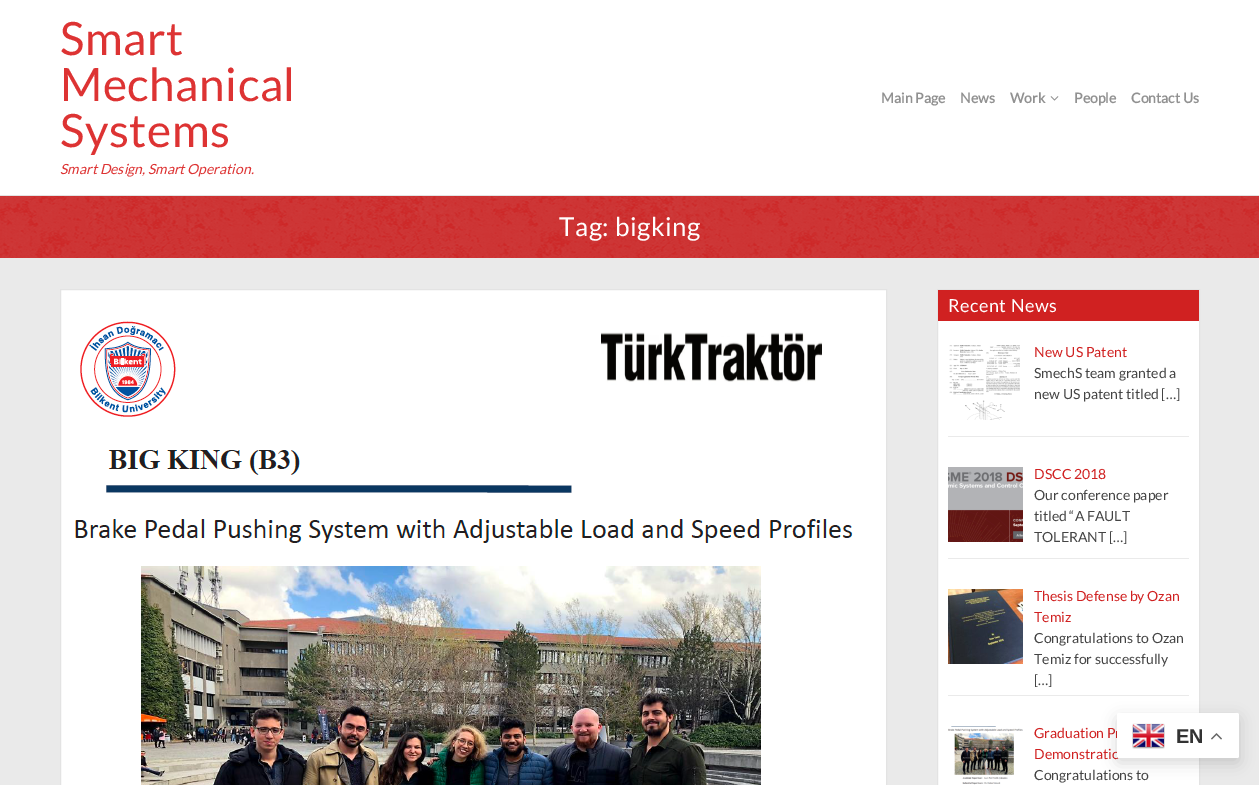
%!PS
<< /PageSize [1259 785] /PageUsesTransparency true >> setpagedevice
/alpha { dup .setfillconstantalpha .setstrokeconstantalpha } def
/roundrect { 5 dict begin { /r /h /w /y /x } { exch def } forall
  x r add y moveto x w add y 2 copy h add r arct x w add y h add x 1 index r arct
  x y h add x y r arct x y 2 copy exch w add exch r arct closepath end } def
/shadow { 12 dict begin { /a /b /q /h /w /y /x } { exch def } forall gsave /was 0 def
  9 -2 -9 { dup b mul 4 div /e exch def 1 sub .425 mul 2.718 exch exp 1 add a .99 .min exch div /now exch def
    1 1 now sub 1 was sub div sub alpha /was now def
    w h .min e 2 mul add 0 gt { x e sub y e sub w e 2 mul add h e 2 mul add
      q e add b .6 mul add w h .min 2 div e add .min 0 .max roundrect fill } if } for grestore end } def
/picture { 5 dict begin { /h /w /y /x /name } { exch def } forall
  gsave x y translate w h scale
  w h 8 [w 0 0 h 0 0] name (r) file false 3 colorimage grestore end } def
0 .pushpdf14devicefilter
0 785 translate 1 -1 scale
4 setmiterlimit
0.918 setgray
0 0 1259 785 rectfill
1 setgray
0 0 1259 195 rectfill
0.89 setgray
0 195 1259 1 rectfill
/Lato-Regular [46 0 0 -46 0 0] selectfont
0.867 0.2 0.2 setrgbcolor
60 55 moveto 0.5 0 (Smart) ashow
60 101 moveto 0.5 0 (Mechanical) ashow
60 147 moveto 0.5 0 (Systems) ashow
/Lato-Italic [14 0 0 -14 0 0] selectfont
60 174 moveto (Smart Design, Smart Operation.) show
/Lato-Bold [14 0 0 -14 0 0] selectfont
0.569 setgray
881 103 moveto (Main Page) show
960 103 moveto (News) show
1010 103 moveto (Work) show
(img1.rgb) 1050 96 9 5 picture
1074 103 moveto (People) show
1131 103 moveto (Contact Us) show
0.816 0.129 0.129 setrgbcolor
0 196 1259 62 rectfill
(img2.rgb) 0 196 1259 62 picture
/Lato-Regular [26 0 0 -26 0 0] selectfont
1 setgray
559 236 moveto 0.5 0 (Tag: bigking) ashow
newpath 60.5 289.5 moveto 886.5 289.5 lineto 886.5 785.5 lineto 60.5 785.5 lineto closepath gsave fill grestore
0.89 setgray
stroke
(img3.rgb) 75 321 778 464 picture
1 setgray
938 321 261 464 rectfill
0.89 setgray
937.5 289.5 262 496 rectstroke
0.816 0.129 0.129 setrgbcolor
938 290 261 31 rectfill
/Lato-Regular [18 0 0 -18 0 0] selectfont
1 setgray
948 312 moveto 0.5 0 (Recent News) ashow
0.918 setgray
948 436 241 1 rectfill
(img4.rgb) 949 345 71 75 picture
/Lato-Regular [14 0 0 -14 0 0] selectfont
0.816 0.129 0.129 setrgbcolor
1034 357 moveto (New US Patent) show
0.267 setgray
1034 378 moveto (SmechS team granted a) show
1034 399 moveto (new US patent titled […]) show
0.918 setgray
948 558 241 1 rectfill
(img5.rgb) 948 467 75 75 picture
0.816 0.129 0.129 setrgbcolor
1034 479 moveto (DSCC 2018) show
0.267 setgray
1034 500 moveto (Our conference paper) show
1034 521 moveto (titled “A FAULT) show
1034 542 moveto (TOLERANT […]) show
0.918 setgray
948 695 241 1 rectfill
(img6.rgb) 948 589 75 75 picture
0.816 0.129 0.129 setrgbcolor
1034 601 moveto (Thesis Defense by Ozan) show
1034 622 moveto (Temiz) show
0.267 setgray
1034 643 moveto (Congratulations to Ozan) show
1034 664 moveto (Temiz for successfully) show
1034 685 moveto ([…]) show
(img7.rgb) 948 726 75 59 picture
0.816 0.129 0.129 setrgbcolor
1034 738 moveto (Graduation Pr) show
1034 759 moveto (Demonstratio) show
0.267 setgray
1034 780 moveto (Congratulations to) show
0 setgray
1117 718 122 45 2 7.5 0.15 shadow
1 setgray
1117 713 122 45 2 roundrect fill
(img8.rgb) 1132 723 33 26 picture
/LiberationSans-Bold [20 0 0 -20 0 0] selectfont
0.2 setgray
1176 743 moveto (EN) show
(img9.rgb) 1211 733 11 7 picture
.poppdf14devicefilter showpage
